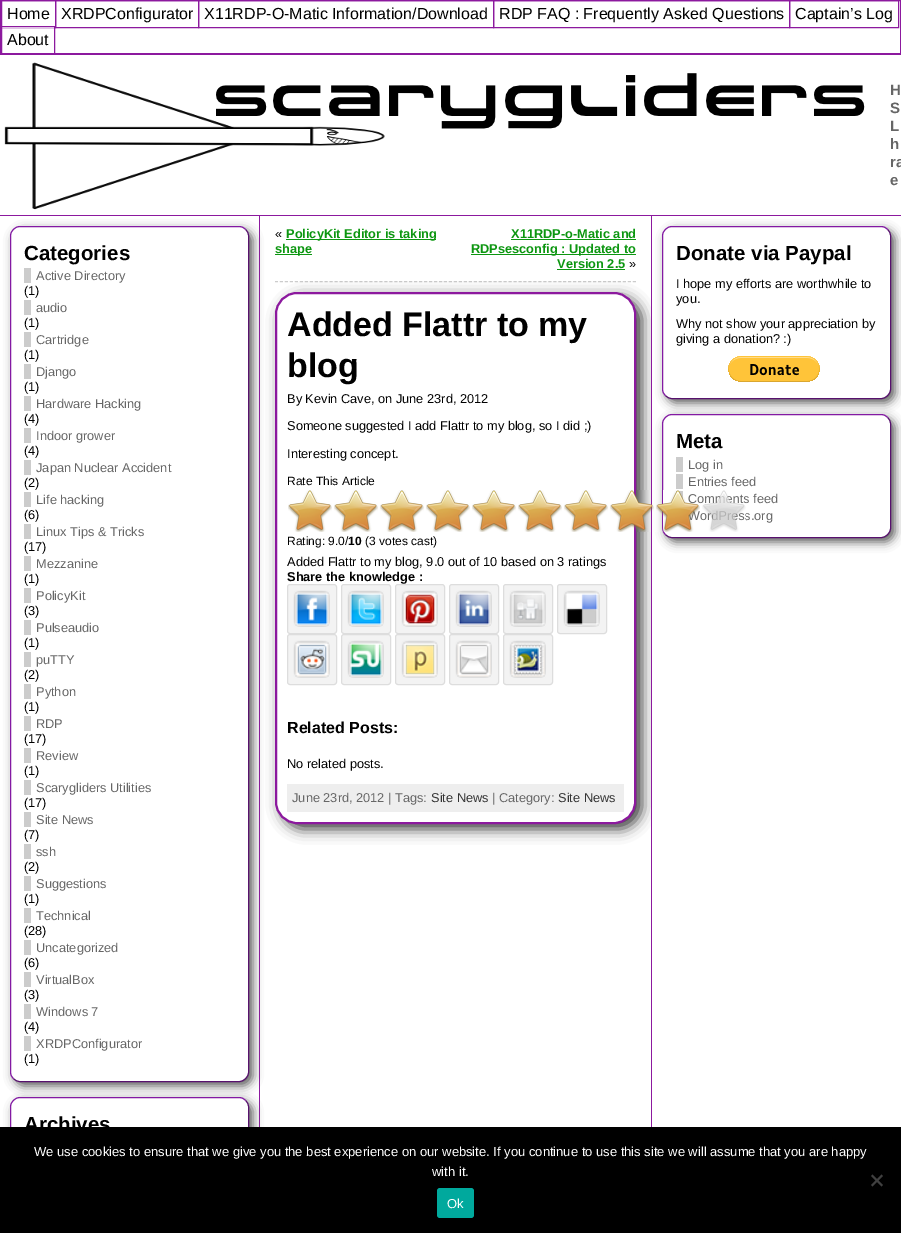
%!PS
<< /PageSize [901 1233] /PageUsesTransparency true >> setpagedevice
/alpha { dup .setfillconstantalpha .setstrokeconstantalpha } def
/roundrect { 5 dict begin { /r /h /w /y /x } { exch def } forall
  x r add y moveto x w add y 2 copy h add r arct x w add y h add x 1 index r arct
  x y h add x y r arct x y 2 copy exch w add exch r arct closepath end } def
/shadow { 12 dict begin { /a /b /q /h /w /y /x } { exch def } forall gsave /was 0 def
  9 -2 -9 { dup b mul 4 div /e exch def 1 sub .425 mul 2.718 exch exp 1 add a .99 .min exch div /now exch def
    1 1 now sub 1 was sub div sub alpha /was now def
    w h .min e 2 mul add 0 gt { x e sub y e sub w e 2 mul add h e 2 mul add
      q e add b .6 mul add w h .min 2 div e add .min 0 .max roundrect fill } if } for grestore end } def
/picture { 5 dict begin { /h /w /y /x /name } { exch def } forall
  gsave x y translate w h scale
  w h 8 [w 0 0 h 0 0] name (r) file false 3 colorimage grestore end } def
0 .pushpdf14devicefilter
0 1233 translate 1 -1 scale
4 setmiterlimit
1 setgray
0 0 901 1233 rectfill
0.549 0.098 0.62 setrgbcolor
0.5 0.5 900 53 rectstroke
1.5 0.5 54 27 rectstroke
/LiberationSans-Regular [16 0 0 -16 0 0] selectfont
0 setgray
7 19 moveto (Home) show
0.549 0.098 0.62 setrgbcolor
55.5 0.5 143 27 rectstroke
0 setgray
61 19 moveto (XRDPConfigurator) show
0.549 0.098 0.62 setrgbcolor
198.5 0.5 295 27 rectstroke
0 setgray
204 19 moveto (X11RDP-O-Matic Information/Download) show
0.549 0.098 0.62 setrgbcolor
493.5 0.5 296 27 rectstroke
0 setgray
499 19 moveto (RDP FAQ : Frequently Asked Questions) show
0.549 0.098 0.62 setrgbcolor
789.5 0.5 109 27 rectstroke
0 setgray
795 19 moveto (Captain’s Log) show
1 setgray
2 27 52 1 rectfill
0.549 0.098 0.62 setrgbcolor
1.5 26.5 53 27 rectstroke
0 setgray
7 45 moveto (About) show
0.549 0.098 0.62 setrgbcolor
0 54 901 1 rectfill
(img1.rgb) 4 62 861 148 picture
/LiberationSans-Bold [15 0 0 -15 0 0] selectfont
0.4 setgray
890 95 moveto (H) show
890 113 moveto (S) show
890 131 moveto (L) show
890 149 moveto (h) show
890 167 moveto (ra) show
890 185 moveto (e) show
0.549 0.098 0.62 setrgbcolor
259 216 1 911 rectfill
gsave
newpath 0 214 moveto 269 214 lineto 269 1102 lineto 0 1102 lineto closepath 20 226 moveto 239 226 lineto 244.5 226 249 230.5 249 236 curveto 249 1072 lineto 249 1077.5 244.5 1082 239 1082 curveto 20 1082 lineto 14.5 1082 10 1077.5 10 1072 curveto 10 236 lineto 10 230.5 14.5 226 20 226 curveto closepath eoclip newpath
0.345 setgray
14 230 239 856 10 5 1 shadow
grestore
0.8 setgray
[3 1.97] 0 setdash
newpath 275 281.5 moveto 636 281.5 lineto stroke
gsave
newpath 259 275 moveto 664 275 lineto 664 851 lineto 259 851 lineto closepath 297 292 moveto 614 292 lineto 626 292 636 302 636 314 curveto 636 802 lineto 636 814 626 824 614 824 curveto 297 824 lineto 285 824 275 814 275 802 curveto 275 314 lineto 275 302 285 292 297 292 curveto closepath eoclip newpath
0.22 setgray
281 297 361 532 22 7 1 shadow
grestore
1 setgray
652 302 6 522 rectfill
0.549 0.098 0.62 setrgbcolor
651 216 1 911 rectfill
gsave
newpath 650 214 moveto 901 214 lineto 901 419 lineto 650 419 lineto closepath 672 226 moveto 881 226 lineto 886.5 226 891 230.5 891 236 curveto 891 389 lineto 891 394.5 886.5 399 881 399 curveto 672 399 lineto 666.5 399 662 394.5 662 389 curveto 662 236 lineto 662 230.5 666.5 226 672 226 curveto closepath eoclip newpath
0.345 setgray
666 230 229 173 10 5 1 shadow
grestore
0 215 901 1 rectfill
0.341 0.067 0.427 setrgbcolor
[] 0 setdash
newpath 245.5 229.5 moveto 247.5 231 248.5 233.5 248.5 236 curveto 248.5 1072 lineto 248.5 1074.5 247.5 1077 245.5 1078.5 curveto 244 1080.5 241.5 1081.5 239 1081.5 curveto 20 1081.5 lineto 17.5 1081.5 15 1080.5 13.5 1078.5 curveto stroke
0.514 0.102 0.639 setrgbcolor
newpath 13.5 1078.5 moveto 11.5 1077 10.5 1074.5 10.5 1072 curveto 10.5 236 lineto 10.5 233.5 11.5 231 13.5 229.5 curveto 15 227.5 17.5 226.5 20 226.5 curveto 239 226.5 lineto 241.5 226.5 244 227.5 245.5 229.5 curveto stroke
/LiberationSans-Bold [20.5 0 0 -20.5 0 0] selectfont
0 setgray
24 260 moveto (Categories) show
0.8 setgray
24 268 7 15 rectfill
/LiberationSans-Regular [12.8 0 0 -12.8 0 0] selectfont
0.4 setgray
36 280 moveto (Active Directory) show
0 setgray
24 295 moveto (\(1\)) show
0.8 setgray
24 300 7 15 rectfill
0.4 setgray
36 312 moveto (audio) show
0 setgray
24 327 moveto (\(1\)) show
0.8 setgray
24 332 7 15 rectfill
0.4 setgray
36 344 moveto (Cartridge) show
0 setgray
24 359 moveto (\(1\)) show
0.8 setgray
24 364 7 15 rectfill
0.4 setgray
36 376 moveto (Django) show
0 setgray
24 391 moveto (\(1\)) show
0.8 setgray
24 396 7 15 rectfill
0.4 setgray
36 408 moveto (Hardware Hacking) show
0 setgray
24 423 moveto (\(4\)) show
0.8 setgray
24 428 7 15 rectfill
0.4 setgray
36 440 moveto (Indoor grower) show
0 setgray
24 455 moveto (\(4\)) show
0.8 setgray
24 460 7 15 rectfill
0.4 setgray
36 472 moveto (Japan Nuclear Accident) show
0 setgray
24 487 moveto (\(2\)) show
0.8 setgray
24 492 7 15 rectfill
0.4 setgray
36 504 moveto (Life hacking) show
0 setgray
24 519 moveto (\(6\)) show
0.8 setgray
24 524 7 15 rectfill
0.4 setgray
36 536 moveto (Linux Tips & Tricks) show
0 setgray
24 551 moveto (\(17\)) show
0.8 setgray
24 556 7 15 rectfill
0.4 setgray
36 568 moveto (Mezzanine) show
0 setgray
24 583 moveto (\(1\)) show
0.8 setgray
24 588 7 15 rectfill
0.4 setgray
36 600 moveto (PolicyKit) show
0 setgray
24 615 moveto (\(3\)) show
0.8 setgray
24 620 7 15 rectfill
0.4 setgray
36 632 moveto (Pulseaudio) show
0 setgray
24 647 moveto (\(1\)) show
0.8 setgray
24 652 7 15 rectfill
0.4 setgray
36 664 moveto (puTTY) show
0 setgray
24 679 moveto (\(2\)) show
0.8 setgray
24 684 7 15 rectfill
0.4 setgray
36 696 moveto (Python) show
0 setgray
24 711 moveto (\(1\)) show
0.8 setgray
24 716 7 15 rectfill
0.4 setgray
36 728 moveto (RDP) show
0 setgray
24 743 moveto (\(17\)) show
0.8 setgray
24 748 7 15 rectfill
0.4 setgray
36 760 moveto (Review) show
0 setgray
24 775 moveto (\(1\)) show
0.8 setgray
24 780 7 15 rectfill
0.4 setgray
36 792 moveto (Scarygliders Utilities) show
0 setgray
24 807 moveto (\(17\)) show
0.8 setgray
24 812 7 15 rectfill
0.4 setgray
36 824 moveto (Site News) show
0 setgray
24 839 moveto (\(7\)) show
0.8 setgray
24 844 7 15 rectfill
0.4 setgray
36 856 moveto (ssh) show
0 setgray
24 871 moveto (\(2\)) show
0.8 setgray
24 876 7 15 rectfill
0.4 setgray
36 888 moveto (Suggestions) show
0 setgray
24 903 moveto (\(1\)) show
0.8 setgray
24 908 7 15 rectfill
0.4 setgray
36 920 moveto (Technical) show
0 setgray
24 935 moveto (\(28\)) show
0.8 setgray
24 940 7 15 rectfill
0.4 setgray
36 952 moveto (Uncategorized) show
0 setgray
24 967 moveto (\(6\)) show
0.8 setgray
24 972 7 15 rectfill
0.4 setgray
36 984 moveto (VirtualBox) show
0 setgray
24 999 moveto (\(3\)) show
0.8 setgray
24 1004 7 15 rectfill
0.4 setgray
36 1016 moveto (Windows 7) show
0 setgray
24 1031 moveto (\(4\)) show
0.8 setgray
24 1036 7 15 rectfill
0.4 setgray
36 1048 moveto (XRDPConfigurator) show
0 setgray
24 1063 moveto (\(1\)) show
gsave
newpath 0 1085 moveto 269 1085 lineto 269 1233 lineto 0 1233 lineto closepath 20 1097 moveto 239 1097 lineto 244.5 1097 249 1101.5 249 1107 curveto 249 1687 lineto 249 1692.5 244.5 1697 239 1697 curveto 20 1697 lineto 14.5 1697 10 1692.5 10 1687 curveto 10 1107 lineto 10 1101.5 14.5 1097 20 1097 curveto closepath eoclip newpath
0.345 setgray
14 1101 239 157 10 5 1 shadow
grestore
0.341 0.067 0.427 setrgbcolor
newpath 245.5 1100.5 moveto 247.5 1102 248.5 1104.5 248.5 1107 curveto 248.5 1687 lineto 248.5 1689.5 247.5 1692 245.5 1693.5 curveto 244 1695.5 241.5 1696.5 239 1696.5 curveto 20 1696.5 lineto 17.5 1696.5 15 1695.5 13.5 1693.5 curveto stroke
0.514 0.102 0.639 setrgbcolor
newpath 13.5 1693.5 moveto 11.5 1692 10.5 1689.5 10.5 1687 curveto 10.5 1107 lineto 10.5 1104.5 11.5 1102 13.5 1100.5 curveto 15 1098.5 17.5 1097.5 20 1097.5 curveto 239 1097.5 lineto 241.5 1097.5 244 1098.5 245.5 1100.5 curveto stroke
/LiberationSans-Bold [20.5 0 0 -20.5 0 0] selectfont
0 setgray
24 1131 moveto (Archives) show
/LiberationSans-Regular [12.8 0 0 -12.8 0 0] selectfont
275 238 moveto («) show
0.047 0.588 0.063 setrgbcolor
286 239 150 1 rectfill
/LiberationSans-Bold [12.8 0 0 -12.8 0 0] selectfont
286 238 moveto (PolicyKit Editor is taking) show
275 254 37 1 rectfill
275 253 moveto (shape) show
511 238 moveto (X11RDP-o-Matic and) show
511 239 125 1 rectfill
471 254 165 1 rectfill
471 253 moveto (RDPsesconfig : Updated to) show
557 268 moveto (Version 2.5) show
557 269 68 1 rectfill
/LiberationSans-Regular [12.8 0 0 -12.8 0 0] selectfont
0 setgray
629 268 moveto (») show
0.549 0.098 0.62 setrgbcolor
2 setlinewidth
276 293 359 530 21 roundrect stroke
/LiberationSans-Bold [34 0 0 -34 0 0] selectfont
0 setgray
287 336 moveto (Added Flattr to my) show
287 377 moveto (blog) show
/LiberationSans-Regular [12.8 0 0 -12.8 0 0] selectfont
287 403 moveto (By Kevin Cave, on June 23rd, 2012) show
287 430 moveto (Someone suggested I add Flattr to my blog, so I did ;\)) show
287 458 moveto (Interesting concept.) show
/LiberationSans-Regular [12 0 0 -12 0 0] selectfont
287 485 moveto (Rate This Article) show
gsave
newpath 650 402 moveto 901 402 lineto 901 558 lineto 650 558 lineto closepath 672 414 moveto 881 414 lineto 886.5 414 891 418.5 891 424 curveto 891 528 lineto 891 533.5 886.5 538 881 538 curveto 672 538 lineto 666.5 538 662 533.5 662 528 curveto 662 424 lineto 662 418.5 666.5 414 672 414 curveto closepath eoclip newpath
0.345 setgray
666 418 229 124 10 5 1 shadow
grestore
0.341 0.067 0.427 setrgbcolor
1 setlinewidth
newpath 887.5 417.5 moveto 889.5 419 890.5 421.5 890.5 424 curveto 890.5 528 lineto 890.5 530.5 889.5 533 887.5 534.5 curveto 886 536.5 883.5 537.5 881 537.5 curveto 672 537.5 lineto 669.5 537.5 667 536.5 665.5 534.5 curveto stroke
0.514 0.102 0.639 setrgbcolor
newpath 665.5 534.5 moveto 663.5 533 662.5 530.5 662.5 528 curveto 662.5 424 lineto 662.5 421.5 663.5 419 665.5 417.5 curveto 667 415.5 669.5 414.5 672 414.5 curveto 881 414.5 lineto 883.5 414.5 886 415.5 887.5 417.5 curveto stroke
0.8 setgray
676 491 7 15 rectfill
/LiberationSans-Regular [12.8 0 0 -12.8 0 0] selectfont
0.4 setgray
688 503 moveto (Comments feed) show
700 520 moveto (or) show
738 520 moveto (ss.org) show
(img2.rgb) 288 490 458 42 picture
(img3.rgb) 288 490 412 42 picture
/LiberationSans-Regular [12 0 0 -12 0 0] selectfont
0 setgray
287 545 moveto (Rating: 9.0/) show
/LiberationSans-Bold [12 0 0 -12 0 0] selectfont
348 545 moveto (10) show
/LiberationSans-Regular [12 0 0 -12 0 0] selectfont
365 545 moveto (\(3 votes cast\)) show
/LiberationSans-Regular [12.8 0 0 -12.8 0 0] selectfont
287 566 moveto (Added Flattr to my blog, 9.0 out of 10 based on 3 ratings) show
/LiberationSans-Bold [12.8 0 0 -12.8 0 0] selectfont
287 581 moveto (Share the knowledge :) show
0.953 setgray
287.5 584.5 49 49 2.5 roundrect gsave fill grestore
0.867 setgray
stroke
0.953 setgray
341.5 584.5 49 49 2.5 roundrect gsave fill grestore
0.867 setgray
stroke
0.953 setgray
395.5 584.5 49 49 2.5 roundrect gsave fill grestore
0.867 setgray
stroke
0.953 setgray
449.5 584.5 49 49 2.5 roundrect gsave fill grestore
0.867 setgray
stroke
0.953 setgray
503.5 584.5 49 49 2.5 roundrect gsave fill grestore
0.867 setgray
stroke
0.953 setgray
557.5 584.5 49 49 2.5 roundrect gsave fill grestore
0.867 setgray
stroke
(img4.rgb) 293 590 37 37 picture
(img5.rgb) 347 590 37 37 picture
(img6.rgb) 401 590 37 37 picture
(img7.rgb) 455 590 37 37 picture
(img8.rgb) 509 590 37 37 picture
(img9.rgb) 563 590 37 37 picture
0.953 setgray
287.5 634.5 49 50 2.5 roundrect gsave fill grestore
0.867 setgray
stroke
0.953 setgray
341.5 634.5 49 50 2.5 roundrect gsave fill grestore
0.867 setgray
stroke
0.953 setgray
395.5 634.5 49 50 2.5 roundrect gsave fill grestore
0.867 setgray
stroke
0.953 setgray
449.5 634.5 49 50 2.5 roundrect gsave fill grestore
0.867 setgray
stroke
0.953 setgray
503.5 634.5 49 50 2.5 roundrect gsave fill grestore
0.867 setgray
stroke
(img10.rgb) 293 640 37 38 picture
(img11.rgb) 347 640 37 38 picture
(img12.rgb) 401 640 37 38 picture
(img13.rgb) 455 640 37 38 picture
(img14.rgb) 509 640 37 38 picture
/LiberationSans-Bold [16 0 0 -16 0 0] selectfont
0 setgray
287 733 moveto (Related Posts:) show
/LiberationSans-Regular [12.8 0 0 -12.8 0 0] selectfont
287 768 moveto (No related posts.) show
0.933 setgray
287 784 337 28 rectfill
0.4 setgray
292 802 moveto (June 23rd, 2012 | Tags:) show
0.2 setgray
431 802 moveto (Site News) show
0.4 setgray
492 802 moveto (| Category:) show
0.2 setgray
558 802 moveto (Site News) show
0.341 0.067 0.427 setrgbcolor
newpath 887.5 229.5 moveto 889.5 231 890.5 233.5 890.5 236 curveto 890.5 389 lineto 890.5 391.5 889.5 394 887.5 395.5 curveto 886 397.5 883.5 398.5 881 398.5 curveto 672 398.5 lineto 669.5 398.5 667 397.5 665.5 395.5 curveto stroke
0.514 0.102 0.639 setrgbcolor
newpath 665.5 395.5 moveto 663.5 394 662.5 391.5 662.5 389 curveto 662.5 236 lineto 662.5 233.5 663.5 231 665.5 229.5 curveto 667 227.5 669.5 226.5 672 226.5 curveto 881 226.5 lineto 883.5 226.5 886 227.5 887.5 229.5 curveto stroke
/LiberationSans-Bold [20.5 0 0 -20.5 0 0] selectfont
0 setgray
676 260 moveto (Donate via Paypal) show
/LiberationSans-Regular [12.8 0 0 -12.8 0 0] selectfont
676 288 moveto (I hope my efforts are worthwhile to) show
676 303 moveto (you.) show
676 328 moveto (Why not show your appreciation by) show
676 343 moveto (giving a donation? :\)) show
(img15.rgb) 728 356 92 26 picture
/LiberationSans-Bold [20.5 0 0 -20.5 0 0] selectfont
676 448 moveto (Meta) show
0.8 setgray
676 457 7 15 rectfill
/LiberationSans-Regular [12.8 0 0 -12.8 0 0] selectfont
0.4 setgray
688 469 moveto (Log in) show
0.8 setgray
676 474 7 15 rectfill
0.4 setgray
688 486 moveto (Entries feed) show
0 setgray
0 1127 901 106 rectfill
/LiberationSans-Regular [13 0 0 -13 0 0] selectfont
1 setgray
34 1156 moveto (We use cookies to ensure that we give you the best experience on our website. If you continue to use this site we will assume that you are happy) show
432 1176 moveto (with it.) show
0.251 setgray
newpath 881.5 1174.5 moveto 883 1176 lineto 872.5 1186.5 lineto 871 1185 lineto closepath fill
newpath 871 1176 moveto 872.5 1174.5 lineto 883 1185 lineto 881.5 1186.5 lineto closepath fill
0 0.663 0.616 setrgbcolor
437 1188 37 30 3 roundrect fill
1 setgray
447 1208 moveto (Ok) show
.poppdf14devicefilter showpage
